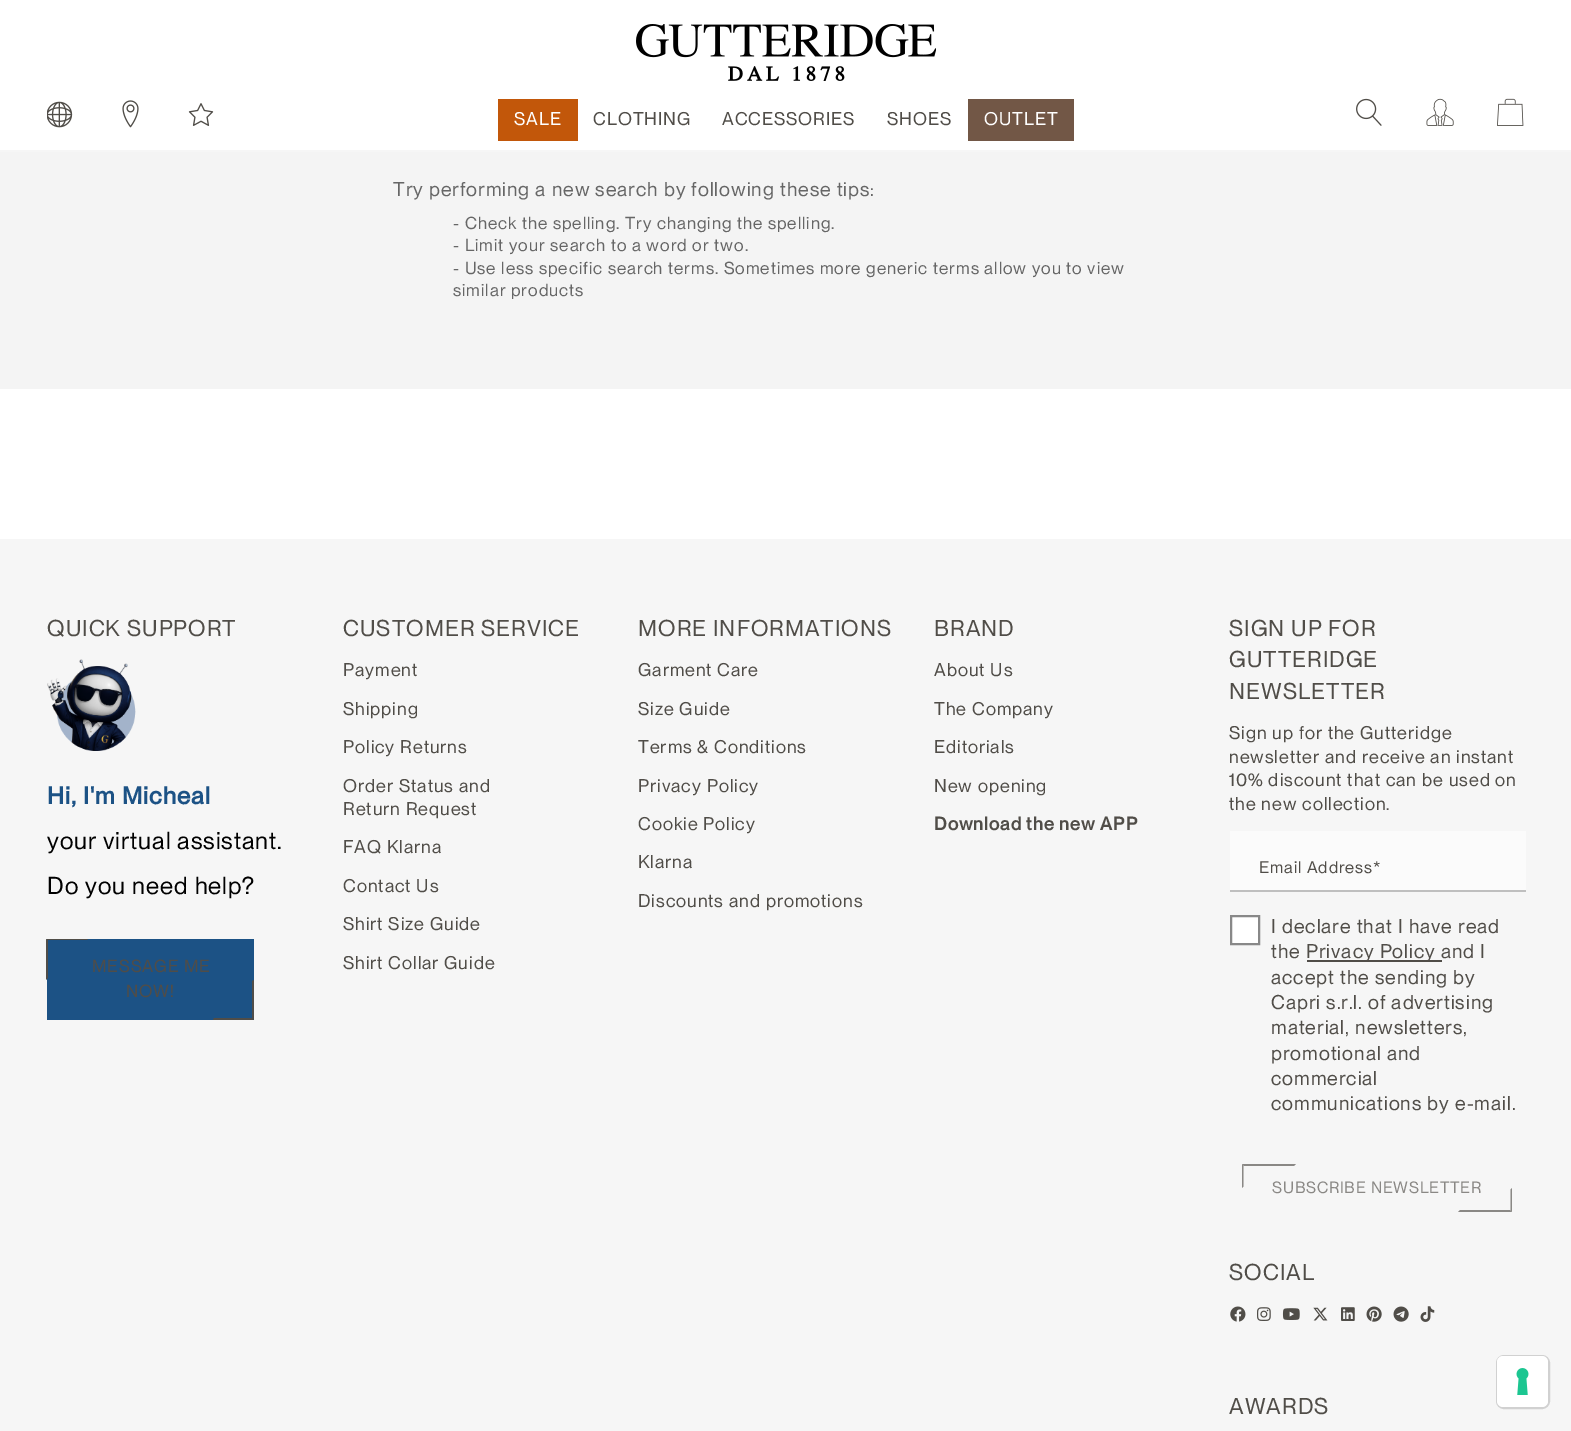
%!PS
<< /PageSize [1571 1431] >> setpagedevice
/roundrect { 5 dict begin { /r /h /w /y /x } { exch def } forall
  x r add y moveto x w add y 2 copy h add r arct x w add y h add x 1 index r arct
  x y h add x y r arct x y 2 copy exch w add exch r arct closepath end } def
/picture { 5 dict begin { /h /w /y /x /name } { exch def } forall
  gsave x y translate w h scale
  w h 8 [w 0 0 h 0 0] name (r) file false 3 colorimage grestore end } def
0 1431 translate 1 -1 scale
4 setmiterlimit
1 setgray
0 0 1571 1431 rectfill
0.965 setgray
0 150 1571 2 rectfill
(img1.rgb) 636 24 300 57 picture
(img2.rgb) 47 101 26 27 picture
(img3.rgb) 122 100 17 28 picture
(img4.rgb) 188 103 26 23 picture
0.761 0.341 0.039 setrgbcolor
498 99 80 42 rectfill
/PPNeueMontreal-Regular [18 0 0 -18 0 0] selectfont
1 setgray
514 125 moveto 0.98 0 (SALE) ashow
0.314 0.302 0.282 setrgbcolor
593 125 moveto 0.98 0 (CLOTHING) ashow
722 125 moveto 0.98 0 (ACCESSORIES) ashow
887 125 moveto 0.98 0 (SHOES) ashow
0.447 0.341 0.275 setrgbcolor
968 99 106 42 rectfill
1 setgray
984 125 moveto 0.98 0 (OUTLET) ashow
(img5.rgb) 1356 98 26 28 picture
(img6.rgb) 1426 98 28 28 picture
(img7.rgb) 1497 98 27 28 picture
0.957 setgray
0 152 1571 237 rectfill
/PPNeueMontreal-Regular [19.5 0 0 -19.5 0 0] selectfont
0.4 setgray
393 196 moveto 0.98 0 (Try performing a new search by following these tips:) ashow
/PPNeueMontreal-Regular [17.05 0 0 -17.05 0 0] selectfont
453 229 moveto 0.98 0 (- Check the spelling. Try changing the spelling.) ashow
453 251 moveto 0.98 0 (- Limit your search to a word or two.) ashow
453 274 moveto 0.98 0 (- Use less specific search terms. Sometimes more generic terms allow you to view) ashow
453 296 moveto 0.98 0 (similar products) ashow
0.965 setgray
0 539 1571 892 rectfill
/PPNeueMontreal-Regular [22.5 0 0 -22.5 0 0] selectfont
0.314 0.302 0.282 setrgbcolor
47 636 moveto 1.1 0 (QUICK SUPPORT) ashow
(img8.rgb) 47 659 89 92 picture
/PPNeueMontreal-Bold [24 0 0 -24 0 0] selectfont
0.11 0.322 0.522 setrgbcolor
47 804 moveto 0.98 0 (Hi, I'm Micheal) ashow
/PPNeueMontreal-Regular [24 0 0 -24 0 0] selectfont
0 setgray
47 849 moveto 0.98 0 (your virtual assistant.) ashow
47 894 moveto 0.98 0 (Do you need help?) ashow
0.11 0.322 0.522 setrgbcolor
47 939 207 81 rectfill
0.314 0.302 0.282 setrgbcolor
newpath 46 939 moveto 88 939 lineto 87 940 lineto 48 940 lineto closepath fill
newpath 46 980 moveto 46 939 lineto 48 940 lineto 48 978 lineto closepath fill
/PPNeueMontreal-Regular [17.25 0 0 -17.25 0 0] selectfont
92 972 moveto 0.9 0 (MESSAGE ME) ashow
126 997 moveto 0.9 0 (NOW!) ashow
newpath 254 980 moveto 254 1020 lineto 252 1018 lineto 252 981 lineto closepath fill
newpath 254 1020 moveto 213 1020 lineto 214 1018 lineto 252 1018 lineto closepath fill
/PPNeueMontreal-Regular [22.5 0 0 -22.5 0 0] selectfont
343 636 moveto 1.1 0 (CUSTOMER SERVICE) ashow
/PPNeueMontreal-Regular [18 0 0 -18 0 0] selectfont
343 676 moveto 0.98 0 (Payment) ashow
343 715 moveto 0.98 0 (Shipping) ashow
343 753 moveto 0.98 0 (Policy Returns) ashow
343 792 moveto 0.98 0 (Order Status and) ashow
343 815 moveto 0.98 0 (Return Request) ashow
343 853 moveto 0.98 0 (FAQ Klarna) ashow
343 892 moveto 0.98 0 (Contact Us) ashow
343 930 moveto 0.98 0 (Shirt Size Guide) ashow
343 969 moveto 0.98 0 (Shirt Collar Guide) ashow
/PPNeueMontreal-Regular [22.5 0 0 -22.5 0 0] selectfont
638 636 moveto 1.1 0 (MORE INFORMATIONS) ashow
/PPNeueMontreal-Regular [18 0 0 -18 0 0] selectfont
638 676 moveto 0.98 0 (Garment Care) ashow
638 715 moveto 0.98 0 (Size Guide) ashow
638 753 moveto 0.98 0 (Terms & Conditions) ashow
638 792 moveto 0.98 0 (Privacy Policy) ashow
638 830 moveto 0.98 0 (Cookie Policy) ashow
638 868 moveto 0.98 0 (Klarna) ashow
638 907 moveto 0.98 0 (Discounts and promotions) ashow
/PPNeueMontreal-Regular [22.5 0 0 -22.5 0 0] selectfont
934 636 moveto 1.1 0 (BRAND) ashow
/PPNeueMontreal-Regular [18 0 0 -18 0 0] selectfont
934 676 moveto 0.98 0 (About Us) ashow
934 715 moveto 0.98 0 (The Company) ashow
934 753 moveto 0.98 0 (Editorials) ashow
934 792 moveto 0.98 0 (New opening) ashow
/PPNeueMontreal-Bold [18 0 0 -18 0 0] selectfont
934 830 moveto 0.98 0 (Download the new APP) ashow
/PPNeueMontreal-Regular [22.5 0 0 -22.5 0 0] selectfont
1229 636 moveto 1.1 0 (SIGN UP FOR) ashow
1229 667 moveto 1.1 0 (GUTTERIDGE) ashow
1229 699 moveto 1.1 0 (NEWSLETTER) ashow
/PPNeueMontreal-Regular [18 0 0 -18 0 0] selectfont
1229 739 moveto 0.98 0 (Sign up for the Gutteridge) ashow
1229 763 moveto 0.98 0 (newsletter and receive an instant) ashow
1229 786 moveto 0.98 0 (10% discount that can be used on) ashow
1229 810 moveto 0.98 0 (the new collection.) ashow
0.984 setgray
1230 831 296 59 rectfill
0.749 setgray
1230 890 296 2 rectfill
/PPNeueMontreal-Regular [16.5 0 0 -16.5 0 0] selectfont
0.314 0.302 0.282 setrgbcolor
1259 873 moveto 0.98 0 (Email Address*) ashow
1 setgray
newpath 1231 916 moveto 1259 916 lineto 1259 944 lineto 1231 944 lineto closepath gsave fill grestore
0.533 setgray
2 setlinewidth
stroke
/PPNeueMontreal-Regular [19.5 0 0 -19.5 0 0] selectfont
0.314 0.302 0.282 setrgbcolor
1271 933 moveto 0.98 0 (I declare that I have read) ashow
1271 958 moveto 0.98 0 (the) ashow
1307 960 135 2 rectfill
1306 958 moveto 0.98 0 (Privacy Policy and I) ashow
1271 984 moveto 0.98 0 (accept the sending by) ashow
1271 1009 moveto 0.98 0 (Capri s.r.l. of advertising) ashow
1271 1034 moveto 0.98 0 (material, newsletters,) ashow
1271 1060 moveto 0.98 0 (promotional and) ashow
1271 1085 moveto 0.98 0 (commercial) ashow
1271 1110 moveto 0.98 0 (communications by e-mail.) ashow
0.541 0.533 0.522 setrgbcolor
newpath 1242 1164 moveto 1296 1164 lineto 1294 1166 lineto 1244 1166 lineto closepath fill
newpath 1242 1188 moveto 1242 1164 lineto 1243.5 1165.5 lineto 1243.5 1186.5 lineto closepath fill
/PPNeueMontreal-Regular [16 0 0 -16 0 0] selectfont
1272 1193 moveto 0.8 0 (SUBSCRIBE NEWSLETTER) ashow
newpath 1512 1188 moveto 1512 1212 lineto 1510.5 1210.5 lineto 1510.5 1189.5 lineto closepath fill
newpath 1512 1212 moveto 1458 1212 lineto 1460 1210 lineto 1510 1210 lineto closepath fill
/PPNeueMontreal-Regular [22.5 0 0 -22.5 0 0] selectfont
0.314 0.302 0.282 setrgbcolor
1229 1280 moveto 1.1 0 (SOCIAL) ashow
(img9.rgb) 1230 1306 16 16 picture
(img10.rgb) 1257 1307 14 14 picture
(img11.rgb) 1282 1308 18 12 picture
(img12.rgb) 1313 1307 15 14 picture
(img13.rgb) 1341 1307 14 14 picture
(img14.rgb) 1366 1306 16 16 picture
(img15.rgb) 1393 1306 16 16 picture
(img16.rgb) 1420 1306 15 16 picture
1229 1414 moveto 1.1 0 (AWARDS) ashow
0.82 setgray
1497 1356 52 52 7 roundrect stroke
1 setgray
1497 1356 51 51 6 roundrect fill
(img17.rgb) 1516 1368 13 27 picture
showpage
